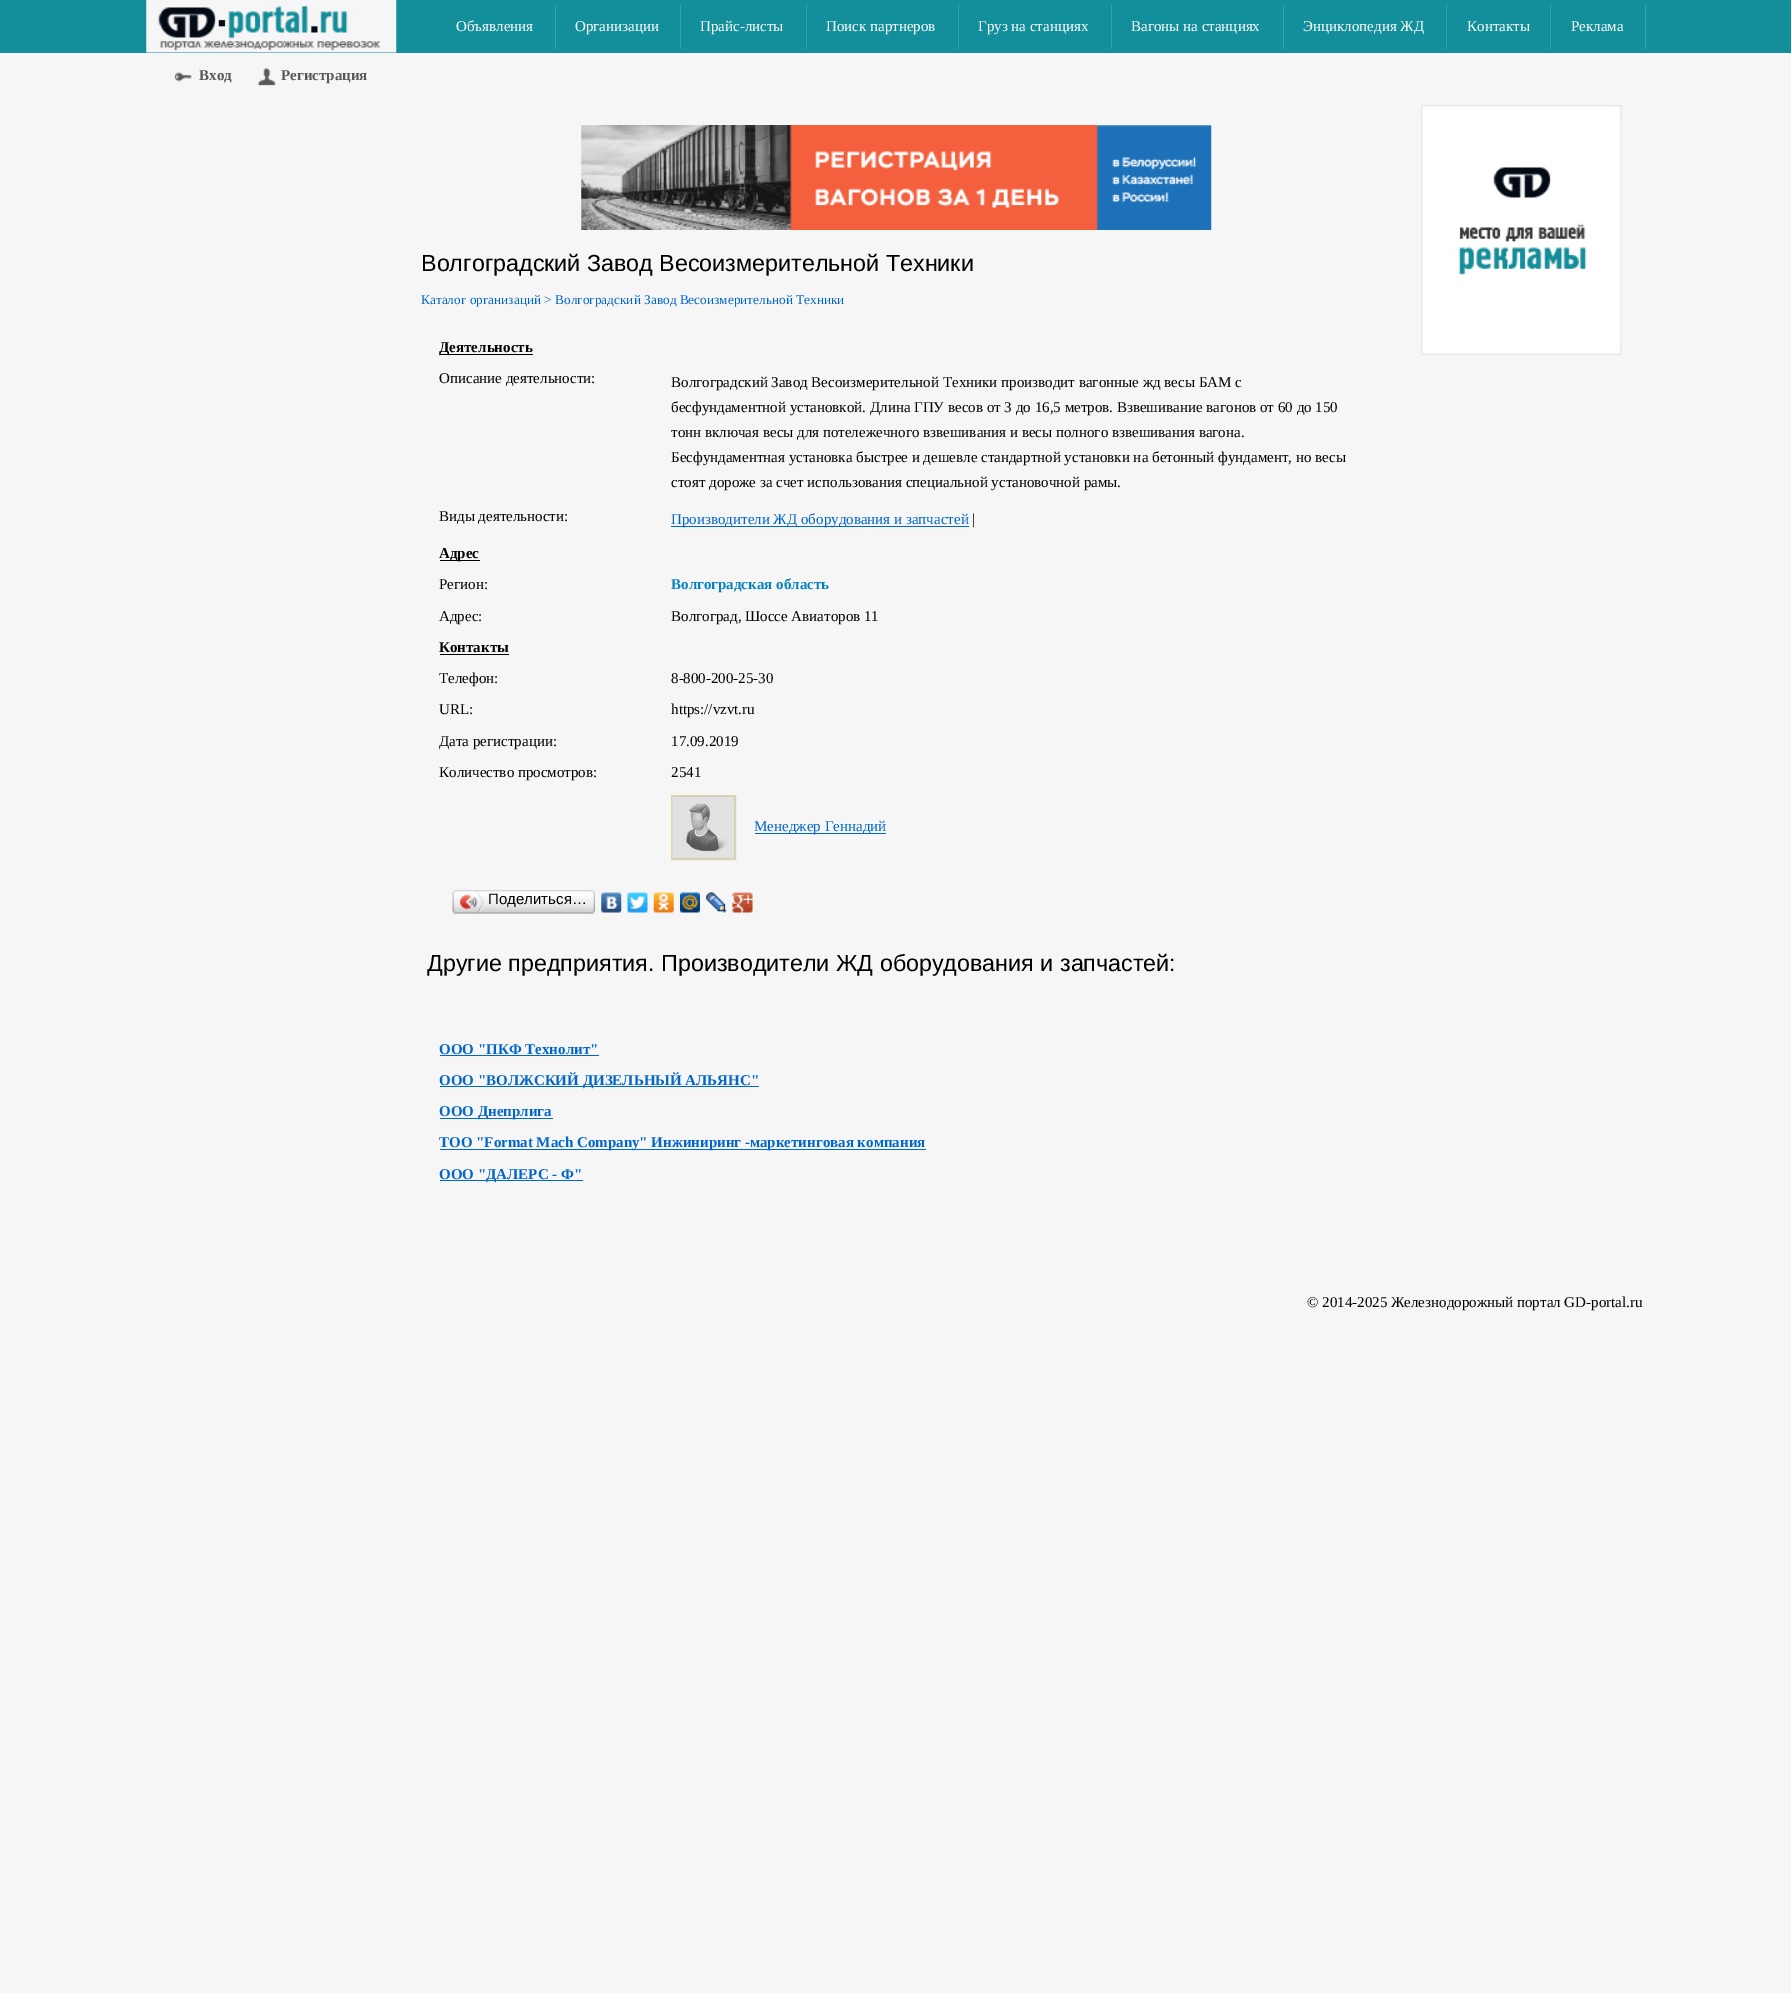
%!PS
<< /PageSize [1791 1993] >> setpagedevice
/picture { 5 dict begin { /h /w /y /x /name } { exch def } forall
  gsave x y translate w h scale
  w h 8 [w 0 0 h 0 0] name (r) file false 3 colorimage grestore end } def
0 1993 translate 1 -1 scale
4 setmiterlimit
0.969 0.965 0.969 setrgbcolor
0 0 1791 1993 rectfill
0.071 0.561 0.604 setrgbcolor
0 0 1791 53 rectfill
(img1.rgb) 146 0 251 53 picture
0.208 0.635 0.675 setrgbcolor
555 5 1 44 rectfill
/LiberationSerif-Regular [15 0 0 -15 0 0] selectfont
1 setgray
456 31 moveto (Объявления) show
0.208 0.635 0.675 setrgbcolor
680 5 1 44 rectfill
1 setgray
575 31 moveto (Организации) show
0.208 0.635 0.675 setrgbcolor
806 5 1 44 rectfill
1 setgray
700 31 moveto (Прайс-листы) show
0.208 0.635 0.675 setrgbcolor
958 5 1 44 rectfill
1 setgray
826 31 moveto (Поиск партнеров) show
0.208 0.635 0.675 setrgbcolor
1111 5 1 44 rectfill
1 setgray
978 31 moveto (Груз на станциях) show
0.208 0.635 0.675 setrgbcolor
1283 5 1 44 rectfill
1 setgray
1131 31 moveto (Вагоны на станциях) show
0.208 0.635 0.675 setrgbcolor
1446 5 1 44 rectfill
1 setgray
1303 31 moveto (Энциклопедия ЖД) show
0.208 0.635 0.675 setrgbcolor
1550 5 1 44 rectfill
1 setgray
1467 31 moveto (Контакты) show
0.208 0.635 0.675 setrgbcolor
1645 5 1 44 rectfill
1 setgray
1571 31 moveto (Реклама) show
(img2.rgb) 174 72 18 10 picture
/LiberationSerif-Bold [15 0 0 -15 0 0] selectfont
0.345 setgray
199 80 moveto (Вход) show
(img3.rgb) 257 67 19 19 picture
281 80 moveto (Регистрация) show
(img4.rgb) 581 125 631 105 picture
/LiberationSans-Regular [23.3 0 0 -23.3 0 0] selectfont
0 setgray
421 271 moveto (Волгоградский Завод Весоизмерительной Техники) show
/LiberationSerif-Regular [13.3 0 0 -13.3 0 0] selectfont
0 0.4 0.8 setrgbcolor
421 304 moveto (Каталог организаций > Волгоградский Завод Весоизмерительной Техники) show
0 setgray
440 354 93 1 rectfill
/LiberationSerif-Bold [15 0 0 -15 0 0] selectfont
439 352 moveto (Деятельность) show
/LiberationSerif-Regular [15 0 0 -15 0 0] selectfont
439 383 moveto (Описание деятельности:) show
671 387 moveto (Волгоградский Завод Весоизмерительной Техники производит вагонные жд весы БАМ с) show
671 412 moveto (бесфундаментной установкой. Длина ГПУ весов от 3 до 16,5 метров. Взвешивание вагонов от 60 до 150) show
671 437 moveto (тонн включая весы для потележечного взвешивания и весы полного взвешивания вагона.) show
671 462 moveto (Бесфундаментная установка быстрее и дешевле стандартной установки на бетонный фундамент, но весы) show
671 487 moveto (стоят дороже за счет использования специальной установочной рамы.) show
439 521 moveto (Виды деятельности:) show
0 0.4 0.8 setrgbcolor
671 526 298 1 rectfill
671 524 moveto (Производители ЖД оборудования и запчастей) show
0 setgray
972 524 moveto (|) show
440 560 40 1 rectfill
/LiberationSerif-Bold [15 0 0 -15 0 0] selectfont
439 558 moveto (Адрес) show
/LiberationSerif-Regular [15 0 0 -15 0 0] selectfont
439 589 moveto (Регион:) show
/LiberationSerif-Bold [15 0 0 -15 0 0] selectfont
0.012 0.51 0.765 setrgbcolor
671 589 moveto (Волгоградская область) show
/LiberationSerif-Regular [15 0 0 -15 0 0] selectfont
0 setgray
439 621 moveto (Адрес:) show
671 621 moveto (Волгоград, Шоссе Авиаторов 11) show
/LiberationSerif-Bold [15 0 0 -15 0 0] selectfont
439 652 moveto (Контакты) show
440 654 69 1 rectfill
/LiberationSerif-Regular [15 0 0 -15 0 0] selectfont
439 683 moveto (Телефон:) show
671 683 moveto (8-800-200-25-30) show
439 714 moveto (URL:) show
671 714 moveto (https://vzvt.ru) show
439 746 moveto (Дата регистрации:) show
671 746 moveto (17.09.2019) show
439 777 moveto (Количество просмотров:) show
671 777 moveto (2541) show
0.878 0.843 0.62 setrgbcolor
671.5 795.5 64 64 rectstroke
(img5.rgb) 672 796 63 63 picture
0 0.4 0.8 setrgbcolor
755 833 131 1 rectfill
754 831 moveto (Менеджер Геннадий) show
(img6.rgb) 456 890 136 24 picture
(img7.rgb) 452 890 5 24 picture
(img8.rgb) 460 891 25 22 picture
/LiberationSans-Regular [15 0 0 -15 0 0] selectfont
0 setgray
488 904 moveto (Поделиться…) show
(img9.rgb) 591 890 4 24 picture
(img10.rgb) 601 892 21 21 picture
(img11.rgb) 627 892 21 21 picture
(img12.rgb) 653 892 21 21 picture
(img13.rgb) 680 892 20 21 picture
(img14.rgb) 706 892 21 21 picture
(img15.rgb) 732 892 21 21 picture
/LiberationSans-Regular [23.3 0 0 -23.3 0 0] selectfont
427 971 moveto (Другие предприятия. Производители ЖД оборудования и запчастей:) show
/LiberationSerif-Bold [15 0 0 -15 0 0] selectfont
0 0.4 0.8 setrgbcolor
439 1054 moveto (ООО "ПКФ Технолит") show
440 1055 159 1 rectfill
440 1086 319 1 rectfill
439 1085 moveto (ООО "ВОЛЖСКИЙ ДИЗЕЛЬНЫЙ АЛЬЯНС") show
440 1118 113 1 rectfill
439 1116 moveto (ООО Днепрлига) show
440 1149 486 1 rectfill
439 1147 moveto (ТОО "Format Mach Company" Инжиниринг -маркетинговая компания) show
440 1180 143 1 rectfill
439 1179 moveto (ООО "ДАЛЕРС - Ф") show
(img16.rgb) 1421 105 201 250 picture
/LiberationSerif-Regular [15 0 0 -15 0 0] selectfont
0 setgray
1307 1307 moveto (© 2014-2025 Железнодорожный портал GD-portal.ru) show
showpage
